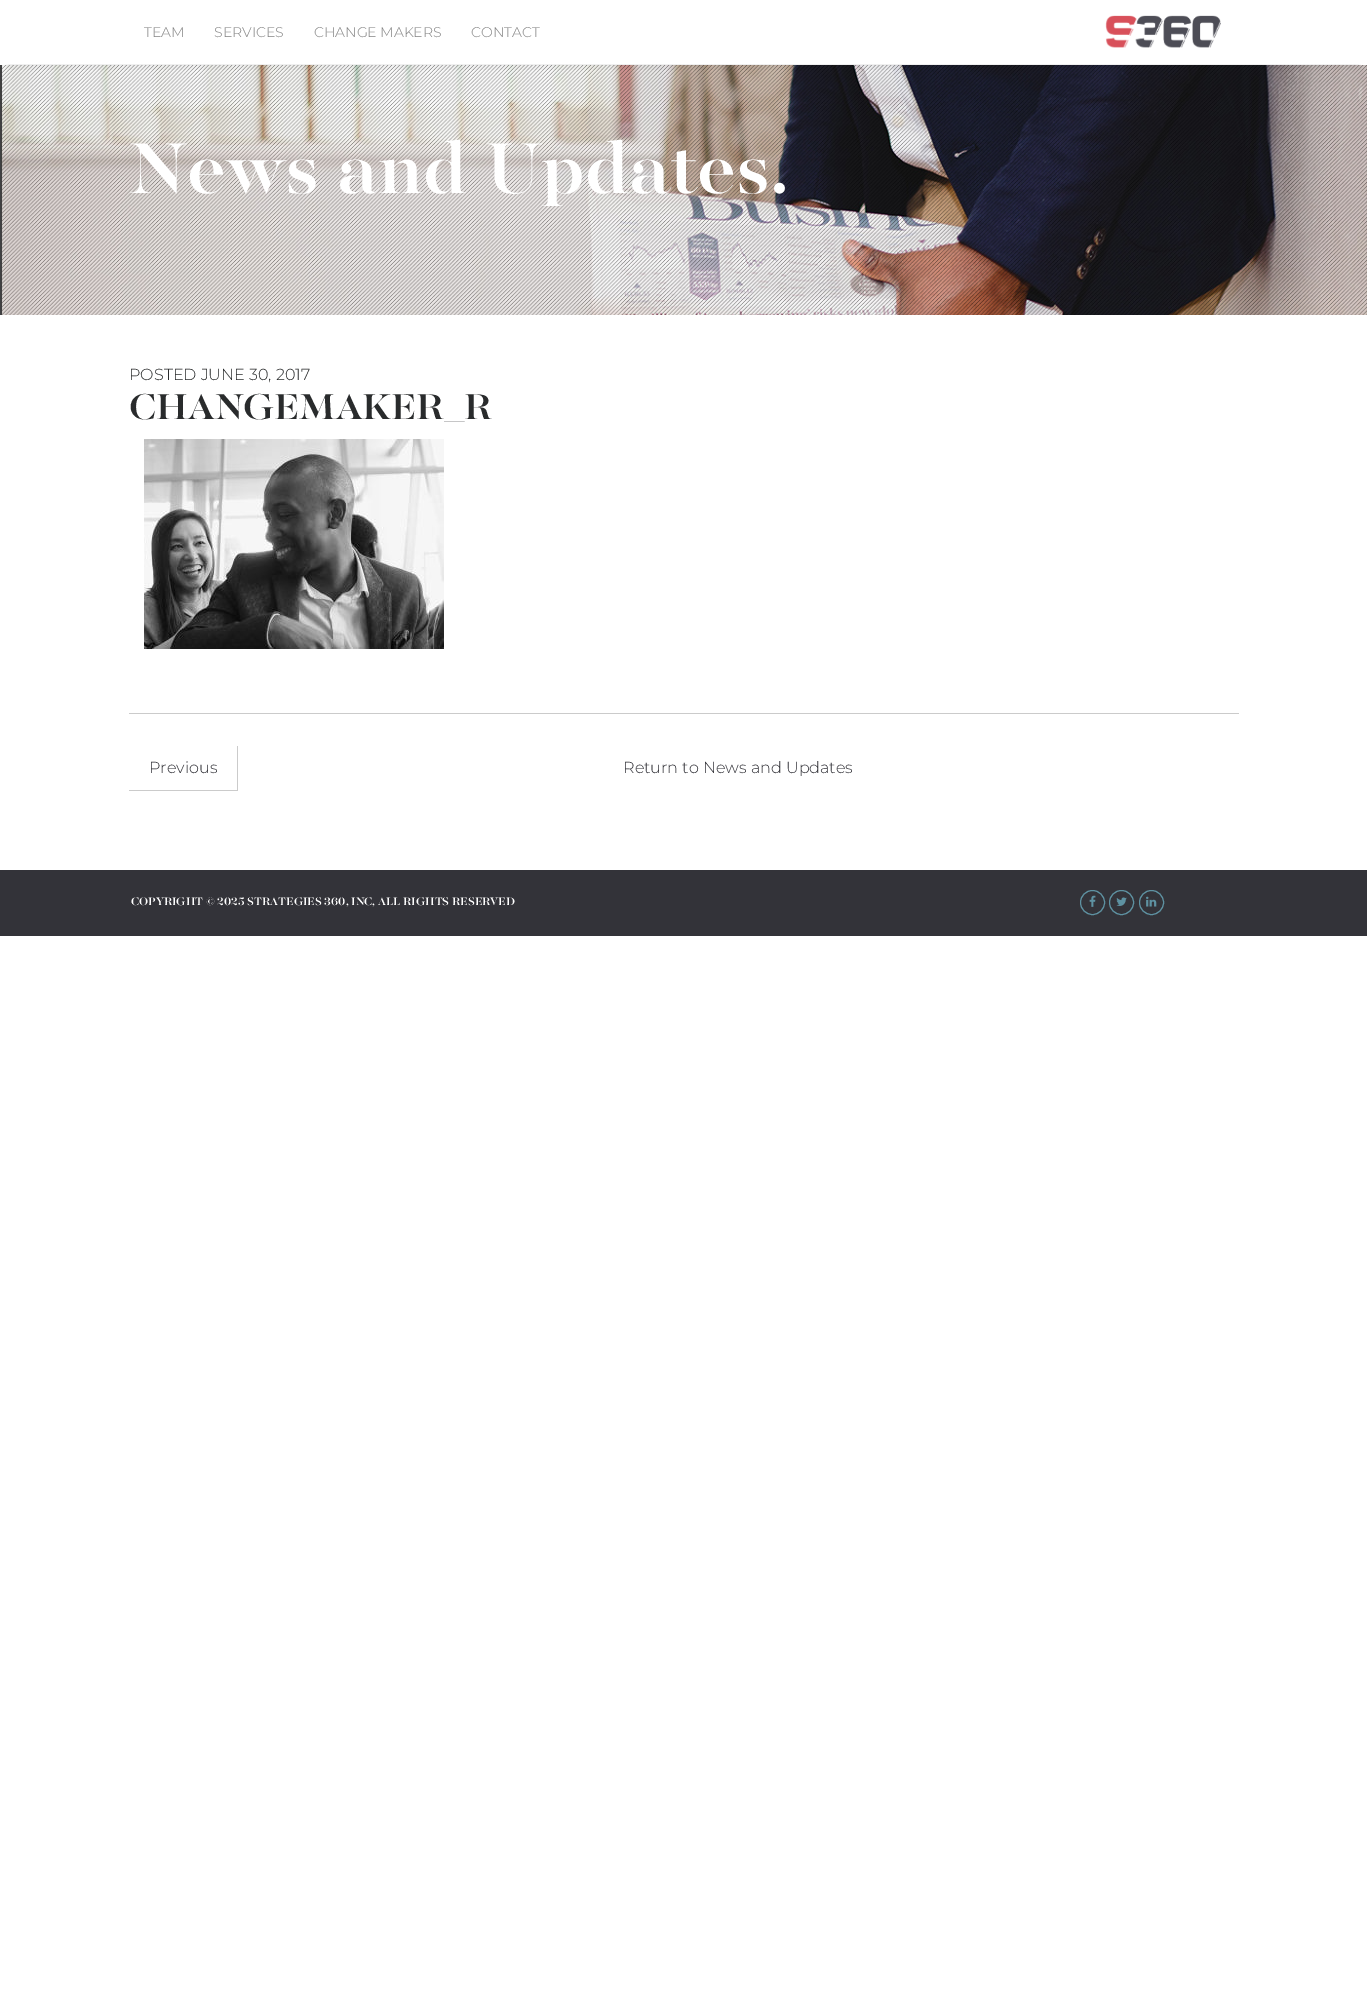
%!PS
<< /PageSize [1367 1997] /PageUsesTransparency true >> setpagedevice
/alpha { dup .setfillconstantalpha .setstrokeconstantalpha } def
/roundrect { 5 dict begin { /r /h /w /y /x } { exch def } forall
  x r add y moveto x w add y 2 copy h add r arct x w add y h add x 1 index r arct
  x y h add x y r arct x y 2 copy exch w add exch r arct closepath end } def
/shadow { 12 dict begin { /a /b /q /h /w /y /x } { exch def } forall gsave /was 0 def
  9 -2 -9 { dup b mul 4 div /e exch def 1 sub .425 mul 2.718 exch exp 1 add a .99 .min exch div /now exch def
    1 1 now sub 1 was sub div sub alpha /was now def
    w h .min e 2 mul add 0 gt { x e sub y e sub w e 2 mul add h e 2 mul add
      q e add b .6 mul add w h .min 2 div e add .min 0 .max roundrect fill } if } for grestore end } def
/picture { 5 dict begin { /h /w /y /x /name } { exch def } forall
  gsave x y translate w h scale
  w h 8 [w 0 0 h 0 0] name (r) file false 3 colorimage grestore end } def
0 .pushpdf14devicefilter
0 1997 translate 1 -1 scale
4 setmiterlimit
1 setgray
0 0 1367 1997 rectfill
(img2.rgb) 0 65 1367 250 picture
gsave
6 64 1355 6 rectclip
0 setgray
9 14 1349 46 0 7.5 0.2 shadow
grestore
/Montserrat-Light [14 0 0 -14 0 0] selectfont
0.502 setgray
144 37 moveto (TEAM) show
214 37 moveto (SERVICES) show
314 37 moveto (CHANGE MAKERS) show
471 37 moveto (CONTACT) show
(img1.rgb) 1105 15 116 33 picture
/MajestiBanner-Medium [80 0 0 -80 0 0] selectfont
1 setgray
129 193 moveto (News and Updates.) show
/Montserrat-Light [16 0 0 -16 0 0] selectfont
0.161 0.169 0.173 setrgbcolor
129 380 moveto (POSTED JUNE 30, 2017) show
/MajestiBanner-Medium [40 0 0 -40 0 0] selectfont
129 419 moveto (CHANGEMAKER_R) show
(img3.rgb) 144 439 300 210 picture
0.796 setgray
129 713 1110 1 rectfill
237 746 1 45 rectfill
129 790 109 1 rectfill
/Montserrat-Light [16 0 0 -16 0 0] selectfont
0.2 0.2 0.224 setrgbcolor
149 773 moveto (Previous) show
623 773 moveto (Return to News and Updates) show
0 870 1367 66 rectfill
/MajestiBanner-Medium [12 0 0 -12 0 0] selectfont
1 setgray
131 905 moveto (COPYRIGHT © 2025 STRATEGIES 360, INC, ALL RIGHTS RESERVED) show
0.369 0.573 0.635 setrgbcolor
newpath 1092.5 902.5 12 0 360 arc closepath stroke
(img4.rgb) 1089 895 7 12 picture
newpath 1121.5 902.5 12 0 360 arc closepath stroke
(img5.rgb) 1116 897 11 9 picture
newpath 1151.5 902.5 12 0 360 arc closepath stroke
(img6.rgb) 1146 896 11 11 picture
.poppdf14devicefilter showpage
